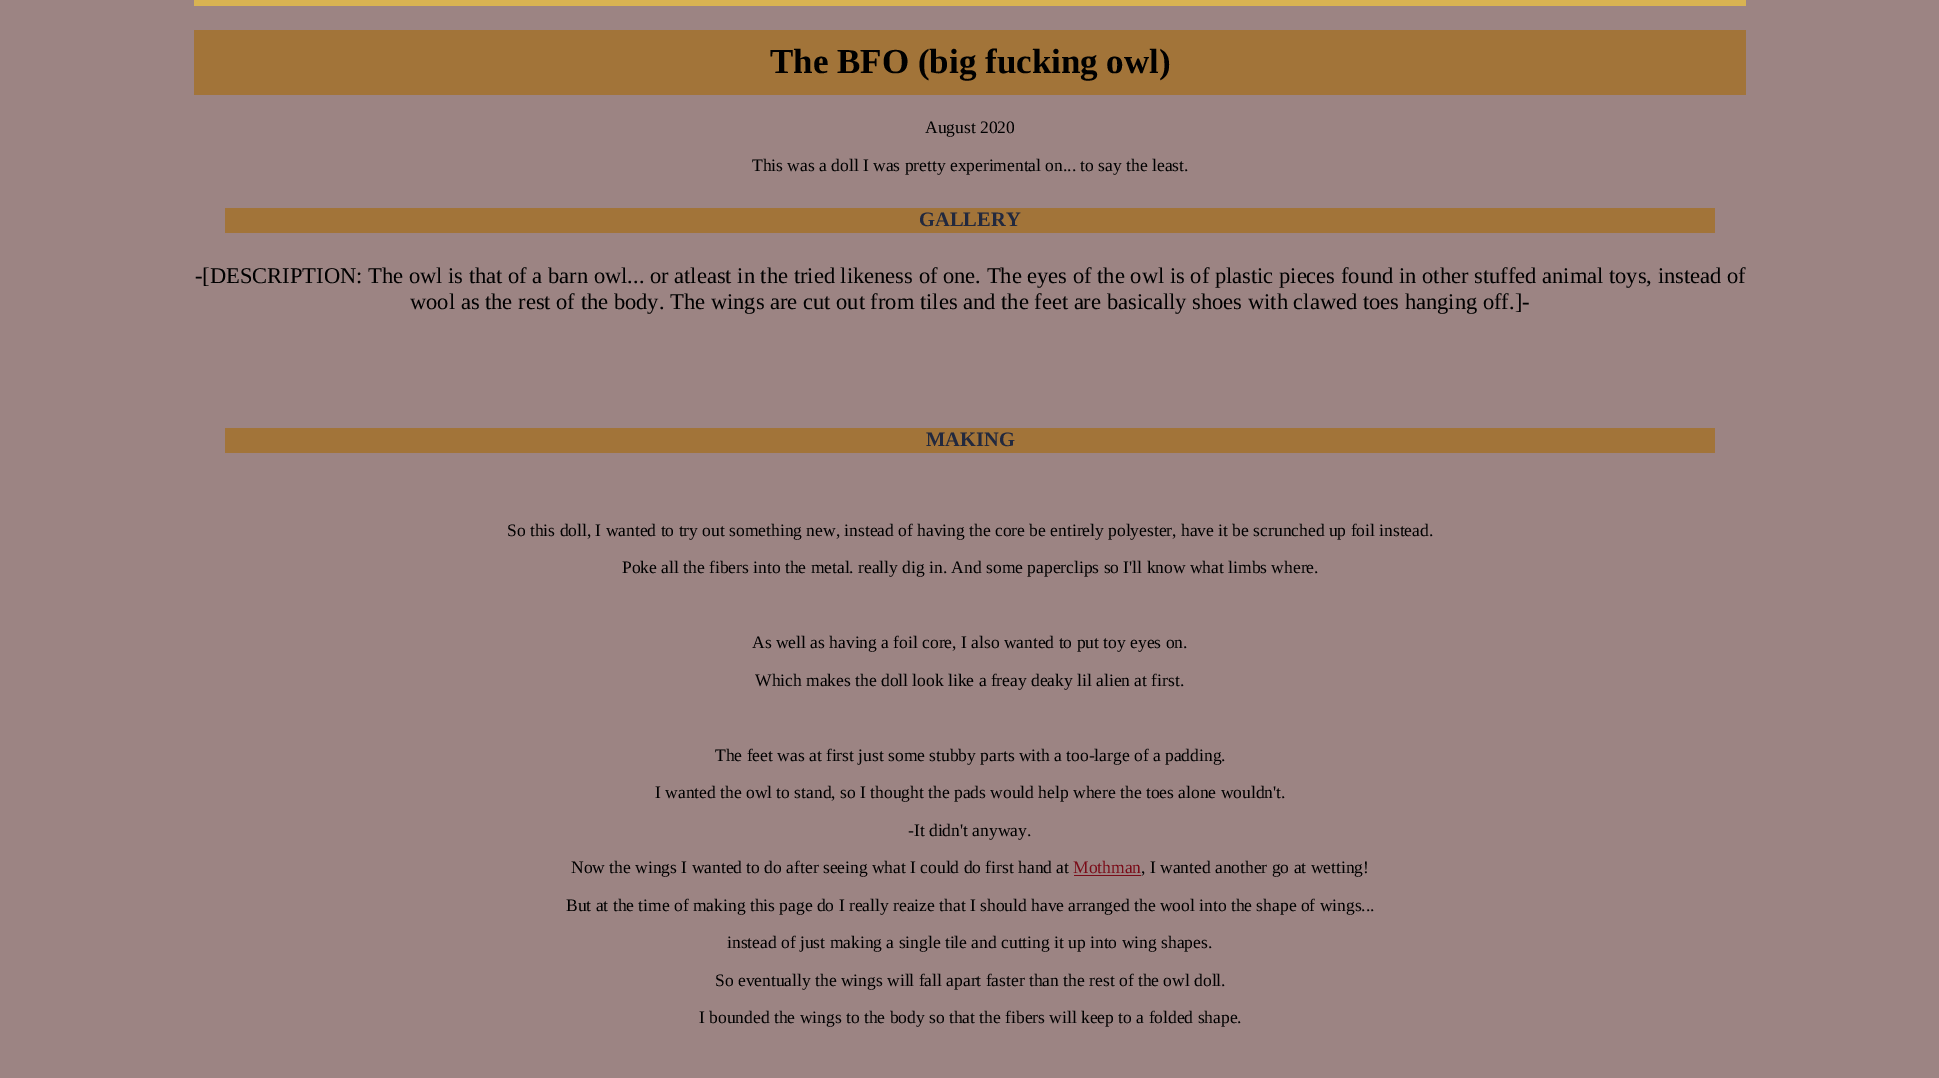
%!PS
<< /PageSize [1939 1078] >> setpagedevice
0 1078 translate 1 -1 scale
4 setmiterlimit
0.612 0.518 0.514 setrgbcolor
0 0 1939 1078 rectfill
0.847 0.702 0.322 setrgbcolor
194 0 1552 6 rectfill
0.635 0.455 0.224 setrgbcolor
194 30 1552 65 rectfill
/LiberationSerif-Bold [35 0 0 -35 0 0] selectfont
0 setgray
770 73 moveto (The BFO \(big fucking owl\)) show
/LiberationSerif-Regular [17.5 0 0 -17.5 0 0] selectfont
925 133 moveto (August 2020) show
752 171 moveto (This was a doll I was pretty experimental on... to say the least.) show
0.635 0.455 0.224 setrgbcolor
225 208 1490 25 rectfill
/LiberationSerif-Bold [20.5 0 0 -20.5 0 0] selectfont
0.133 0.161 0.243 setrgbcolor
919 226 moveto (GALLERY) show
/LiberationSerif-Regular [22.5 0 0 -22.5 0 0] selectfont
0 setgray
195 283 moveto (-[DESCRIPTION: The owl is that of a barn owl... or atleast in the tried likeness of one. The eyes of the owl is of plastic pieces found in other stuffed animal toys, instead of) show
410 309 moveto (wool as the rest of the body. The wings are cut out from tiles and the feet are basically shoes with clawed toes hanging off.]-) show
0.635 0.455 0.224 setrgbcolor
225 428 1490 25 rectfill
/LiberationSerif-Bold [20.5 0 0 -20.5 0 0] selectfont
0.133 0.161 0.243 setrgbcolor
926 446 moveto (MAKING) show
/LiberationSerif-Regular [17.5 0 0 -17.5 0 0] selectfont
0 setgray
507 536 moveto (So this doll, I wanted to try out something new, instead of having the core be entirely polyester, have it be scrunched up foil instead.) show
622 573 moveto (Poke all the fibers into the metal. really dig in. And some paperclips so I'll know what limbs where.) show
752 648 moveto (As well as having a foil core, I also wanted to put toy eyes on.) show
755 686 moveto (Which makes the doll look like a freay deaky lil alien at first.) show
715 761 moveto (The feet was at first just some stubby parts with a too-large of a padding.) show
655 798 moveto (I wanted the owl to stand, so I thought the pads would help where the toes alone wouldn't.) show
908 836 moveto (-It didn't anyway.) show
571 873 moveto (Now the wings I wanted to do after seeing what I could do first hand at) show
0.478 0.043 0.094 setrgbcolor
1073 873 moveto (Mothman) show
1074 875 67 1 rectfill
0 setgray
1141 873 moveto (, I wanted another go at wetting!) show
566 911 moveto (But at the time of making this page do I really reaize that I should have arranged the wool into the shape of wings...) show
727 948 moveto (instead of just making a single tile and cutting it up into wing shapes.) show
715 986 moveto (So eventually the wings will fall apart faster than the rest of the owl doll.) show
699 1023 moveto (I bounded the wings to the body so that the fibers will keep to a folded shape.) show
showpage
